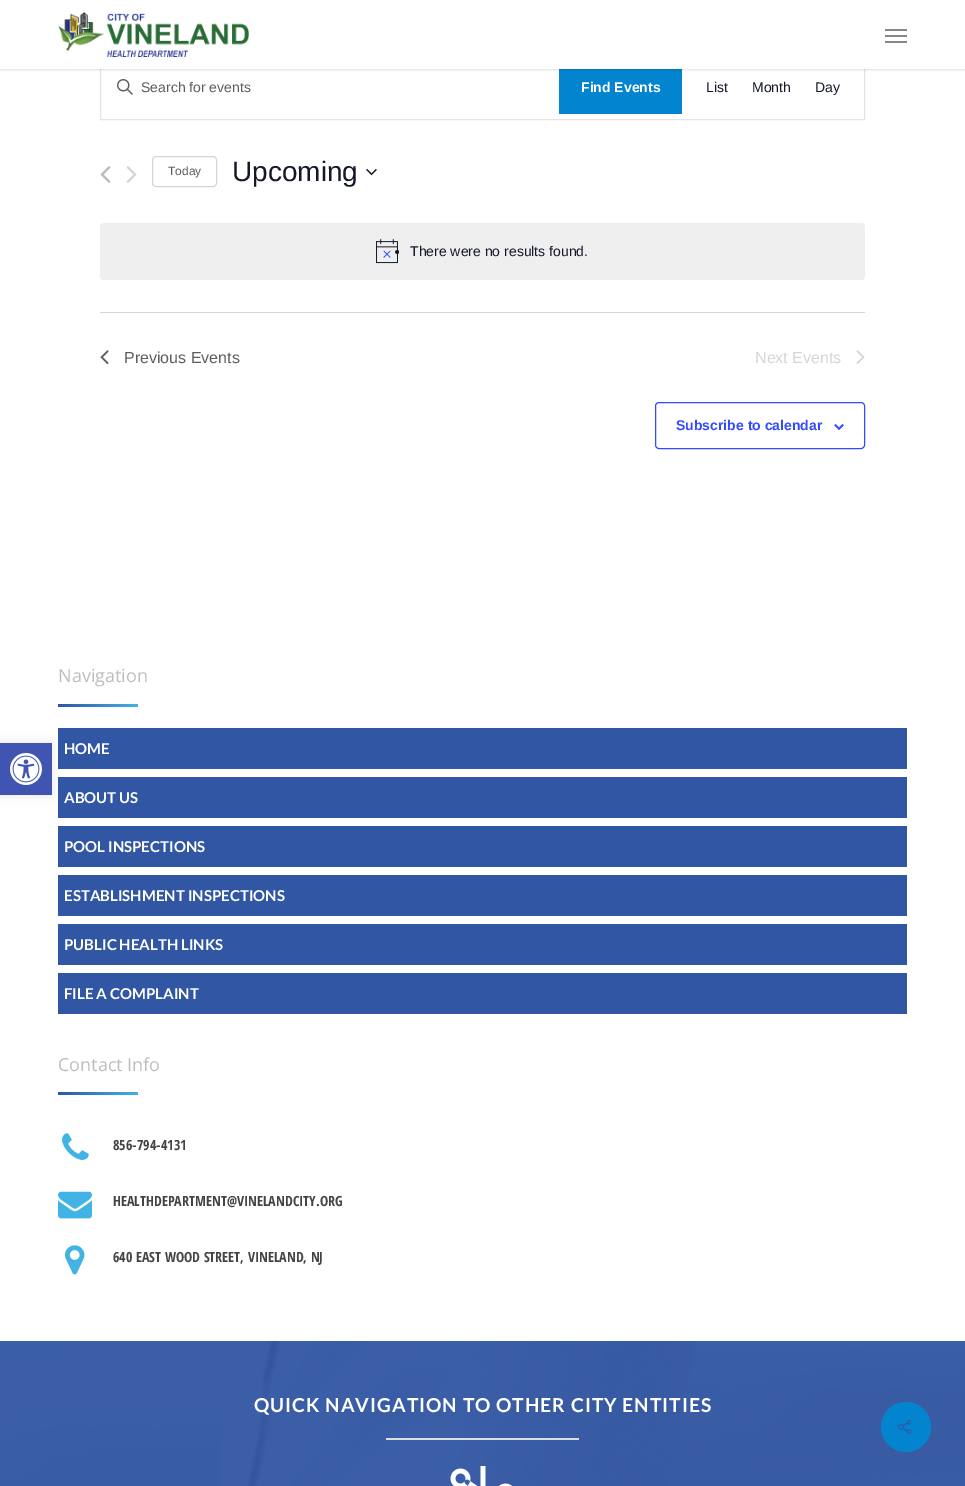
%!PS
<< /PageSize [965 1486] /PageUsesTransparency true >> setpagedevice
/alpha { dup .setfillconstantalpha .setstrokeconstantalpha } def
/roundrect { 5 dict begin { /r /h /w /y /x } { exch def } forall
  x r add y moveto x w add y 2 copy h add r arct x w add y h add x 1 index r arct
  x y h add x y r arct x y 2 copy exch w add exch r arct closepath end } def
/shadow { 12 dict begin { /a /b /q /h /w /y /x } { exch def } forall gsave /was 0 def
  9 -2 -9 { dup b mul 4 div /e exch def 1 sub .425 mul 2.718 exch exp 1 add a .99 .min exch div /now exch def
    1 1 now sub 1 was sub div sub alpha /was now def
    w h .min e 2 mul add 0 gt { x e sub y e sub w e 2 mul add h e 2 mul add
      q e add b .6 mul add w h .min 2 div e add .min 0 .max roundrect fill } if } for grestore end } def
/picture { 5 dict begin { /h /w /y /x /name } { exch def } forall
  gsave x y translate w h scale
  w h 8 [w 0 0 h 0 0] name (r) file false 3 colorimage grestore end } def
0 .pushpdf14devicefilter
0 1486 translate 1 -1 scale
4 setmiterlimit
1 setgray
0 0 965 1486 rectfill
0.894 setgray
100.5 55.5 764 64 rectstroke
0.012 0.518 0.808 setrgbcolor
559 69 123 45 rectfill
0 setgray
0 -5 965 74 0 1.5 0.22 shadow
1 setgray
0 0 965 69 rectfill
(img1.rgb) 58 12 192 45 picture
0.533 setgray
885 29 22 2 rectfill
885 41 22 2 rectfill
885 35 22 2 rectfill
0.192 0.337 0.639 setrgbcolor
58 728 849 41 rectfill
58 777 849 41 rectfill
0 setgray
0 743 52 52 0 5 0.1 shadow
0.251 0.329 0.698 setrgbcolor
0 743 52 52 rectfill
(img2.rgb) 10 753 32 32 picture
(img3.rgb) 117 79 16 16 picture
/LiberationSans-Regular [14 0 0 -14 0 0] selectfont
0.365 setgray
141 92 moveto (Search for events) show
/LiberationSans-Bold [14 0 0 -14 0 0] selectfont
1 setgray
581 92 moveto (Find Events) show
/LiberationSans-Regular [14 0 0 -14 0 0] selectfont
0.078 0.094 0.153 setrgbcolor
706 92 moveto (List) show
752 92 moveto (Month) show
815 92 moveto (Day) show
(img4.rgb) 100 166 11 17 picture
(img5.rgb) 126 166 11 17 picture
0.835 setgray
152.5 156.5 64 30 3.5 roundrect stroke
/LiberationSans-Regular [12 0 0 -12 0 0] selectfont
0.365 setgray
168 175 moveto (Today) show
/LiberationSans-Regular [28 0 0 -28 0 0] selectfont
0.078 0.094 0.153 setrgbcolor
232 181 moveto (Upcoming) show
(img6.rgb) 366 168 11 8 picture
0.937 0.937 0.941 setrgbcolor
100 223 765 57 4 roundrect fill
0.078 0.094 0.153 setrgbcolor
newpath 397 252 2 0 360 arc closepath fill
(img7.rgb) 376 239 22 25 picture
/LiberationSans-Regular [14 0 0 -14 0 0] selectfont
410 256 moveto (There were no results found.) show
0.835 setgray
100 312 765 1 rectfill
(img8.rgb) 100 350 9 15 picture
/LiberationSans-Regular [16 0 0 -16 0 0] selectfont
0.365 setgray
124 363 moveto (Previous Events) show
0.835 setgray
755 363 moveto (Next Events) show
(img9.rgb) 856 350 9 14 picture
0.2 0.29 1 setrgbcolor
655.5 402.5 209 46 3.5 roundrect stroke
/LiberationSans-Bold [14 0 0 -14 0 0] selectfont
676 430 moveto (Subscribe to calendar) show
(img10.rgb) 834 424 10 6 picture
/OpenSans-Regular [18 0 0 -18 0 0] selectfont
0.741 setgray
58 682 moveto (Navigation) show
gsave newpath 58 704 moveto 138 704 lineto 138 707 lineto 58 707 lineto closepath clip newpath
<< /ShadingType 2 /ColorSpace /DeviceRGB /Coords [58 706 138 706] /Extend [true true] /Function << /FunctionType 2 /Domain [0 1] /C0 [0.192 0.337 0.639] /C1 [0.259 0.702 0.898] /N 1 >> >> shfill grestore
/Lato-Bold [15 0 0 -15 0 0] selectfont
1 setgray
64 754 moveto (HOME) show
64 803 moveto (ABOUT US) show
0.192 0.337 0.639 setrgbcolor
58 826 849 41 rectfill
1 setgray
64 852 moveto (POOL INSPECTIONS) show
0.192 0.337 0.639 setrgbcolor
58 875 849 41 rectfill
1 setgray
64 901 moveto (ESTABLISHMENT INSPECTIONS) show
0.192 0.337 0.639 setrgbcolor
58 924 849 41 rectfill
1 setgray
64 950 moveto (PUBLIC HEALTH LINKS) show
0.192 0.337 0.639 setrgbcolor
58 973 849 41 rectfill
1 setgray
64 999 moveto (FILE A COMPLAINT) show
/OpenSans-Regular [18 0 0 -18 0 0] selectfont
0.741 setgray
58 1071 moveto (Contact Info) show
gsave newpath 58 1092 moveto 138 1092 lineto 138 1095 lineto 58 1095 lineto closepath clip newpath
<< /ShadingType 2 /ColorSpace /DeviceRGB /Coords [58 1094 138 1094] /Extend [true true] /Function << /FunctionType 2 /Domain [0 1] /C0 [0.192 0.337 0.639] /C1 [0.259 0.702 0.898] /N 1 >> >> shfill grestore
(img11.rgb) 62 1133 27 27 picture
/OpenSansCondensed-Bold [14 0 0 -14 0 0] selectfont
0.267 setgray
113 1150 moveto (856-794-4131) show
(img12.rgb) 58 1191 34 28 picture
113 1206 moveto (HEALTHDEPARTMENT@VINELANDCITY.ORG) show
(img13.rgb) 65 1245 20 30 picture
113 1262 moveto (640 EAST WOOD STREET, VINELAND, NJ) show
(img14.rgb) 0 1341 965 145 picture
/Lato-Bold [19.2 0 0 -19.2 0 0] selectfont
1 setgray
254 1412 moveto 1 0 (QUICK NAVIGATION TO OTHER CITY ENTITIES) ashow
0.867 setgray
386 1438 193 2 rectfill
(img15.rgb) 450 1466 62 20 picture
0.012 0.518 0.808 setrgbcolor
newpath 906 1427 25 0 360 arc closepath fill
(img16.rgb) 898 1420 14 14 picture
.poppdf14devicefilter showpage
